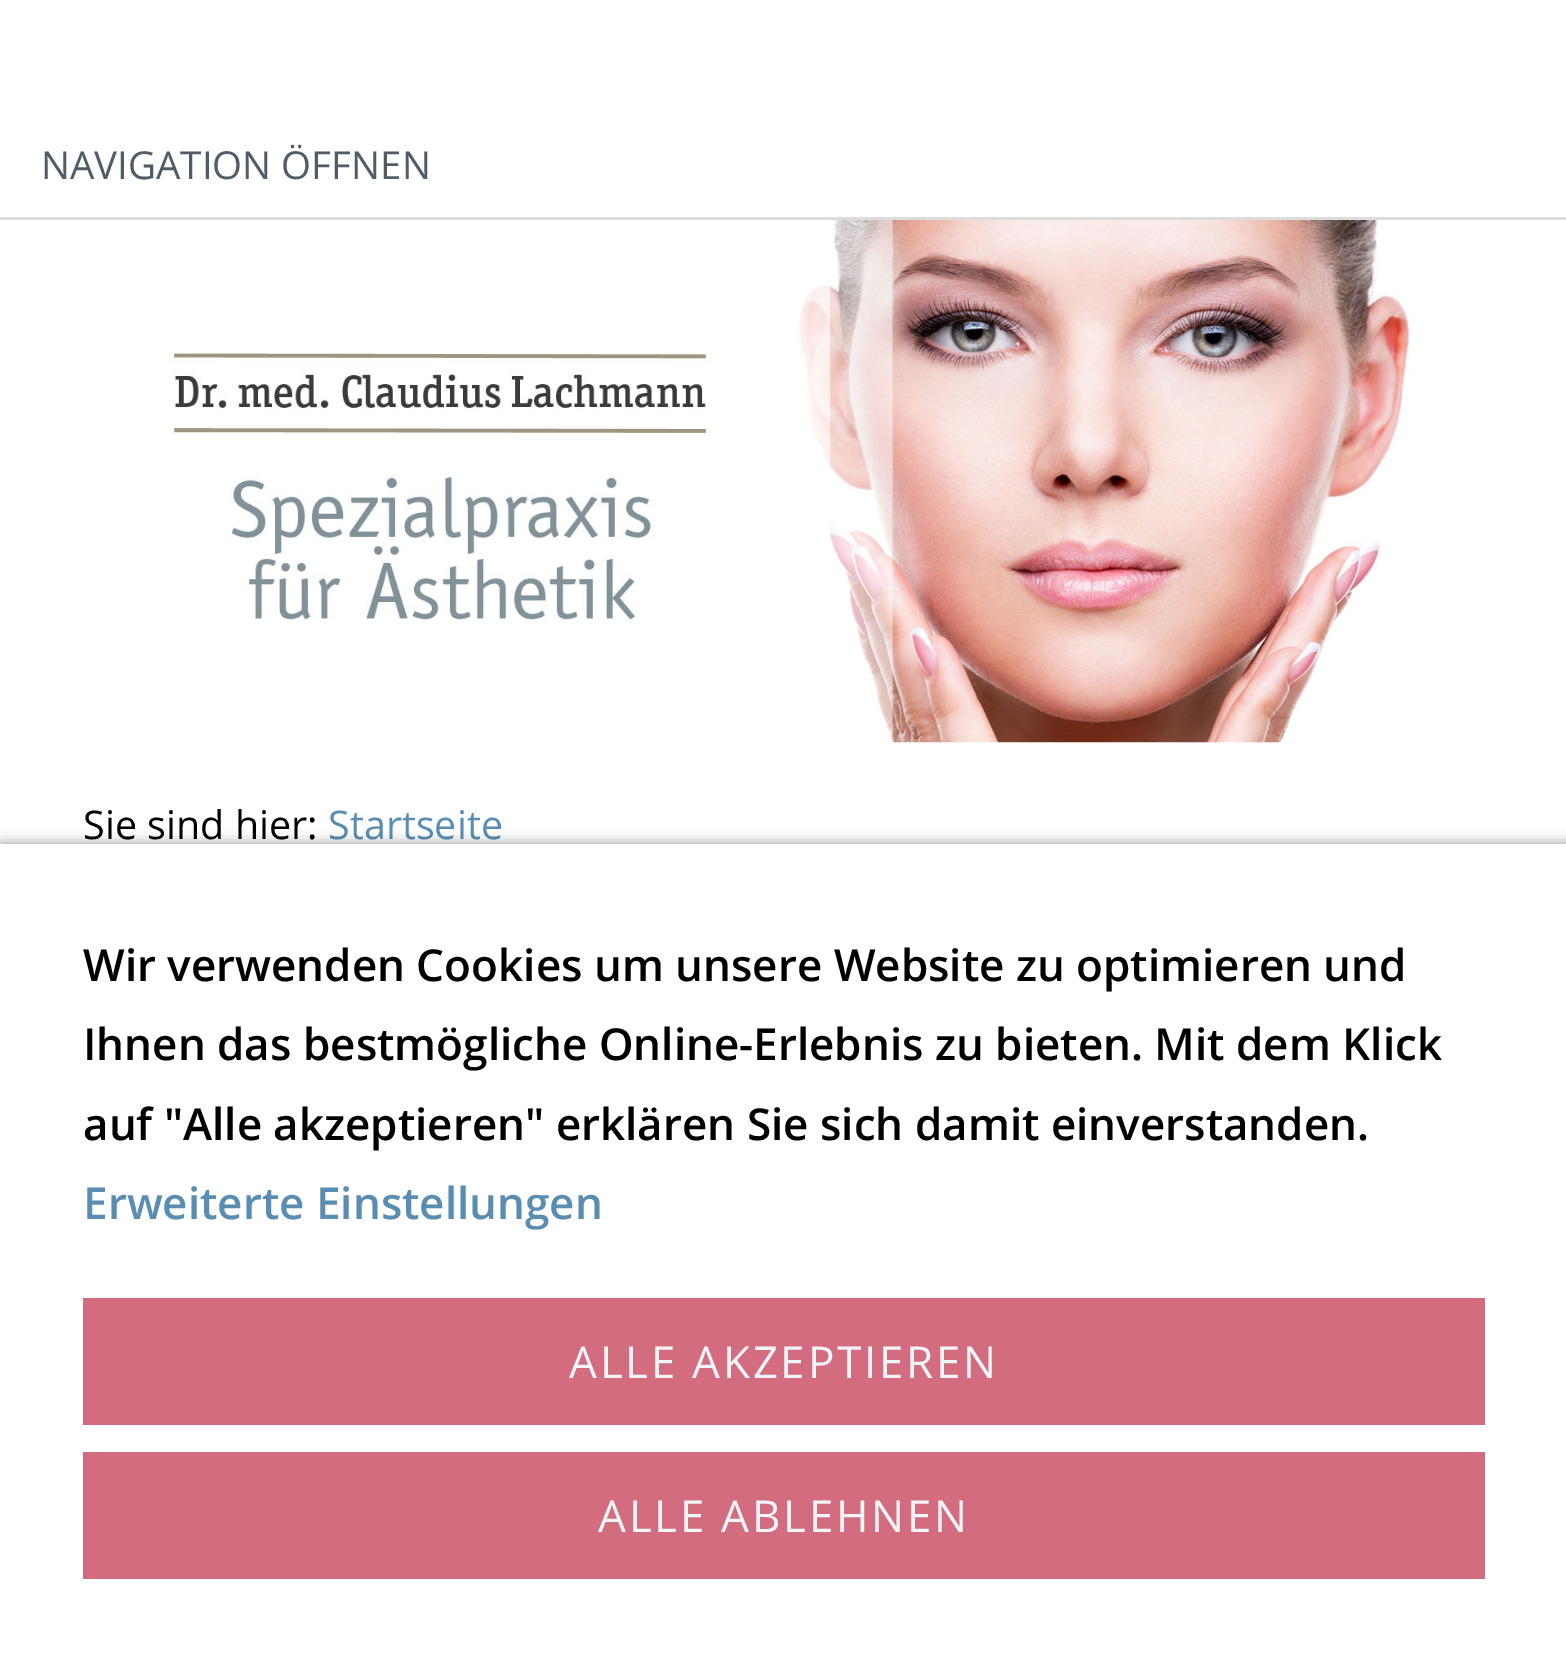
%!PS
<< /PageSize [1566 1661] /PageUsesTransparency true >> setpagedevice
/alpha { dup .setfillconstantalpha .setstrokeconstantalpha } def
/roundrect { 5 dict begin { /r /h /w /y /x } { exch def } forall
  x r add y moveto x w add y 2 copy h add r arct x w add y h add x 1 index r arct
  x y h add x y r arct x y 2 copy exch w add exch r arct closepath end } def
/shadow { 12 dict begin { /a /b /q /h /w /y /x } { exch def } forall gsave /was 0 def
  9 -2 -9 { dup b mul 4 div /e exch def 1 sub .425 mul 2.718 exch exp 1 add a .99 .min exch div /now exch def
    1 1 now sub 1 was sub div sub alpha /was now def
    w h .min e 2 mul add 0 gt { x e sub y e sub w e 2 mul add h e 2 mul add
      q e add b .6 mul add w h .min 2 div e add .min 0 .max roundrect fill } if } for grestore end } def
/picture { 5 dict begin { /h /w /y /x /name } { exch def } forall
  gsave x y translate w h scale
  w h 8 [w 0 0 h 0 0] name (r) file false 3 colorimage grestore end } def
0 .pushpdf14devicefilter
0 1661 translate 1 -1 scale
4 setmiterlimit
1 setgray
0 0 1566 1661 rectfill
/OpenSans-Regular [38.5 0 0 -38.5 0 0] selectfont
0.318 0.365 0.4 setrgbcolor
41 179 moveto (NAVIGATION ÖFFNEN) show
0.867 setgray
0 217 1566 3 rectfill
(img1.rgb) 170 220 1241 523 picture
/OpenSans-Regular [39.5 0 0 -39.5 0 0] selectfont
0 setgray
83 839 moveto (Sie sind hier:) show
0.349 0.557 0.698 setrgbcolor
328 839 moveto (Startseite) show
0 setgray
0 844 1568 817 0 7 0.4 shadow
1 setgray
0 844 1566 817 rectfill
/OpenSans-SemiBold [44 0 0 -44 0 0] selectfont
0 setgray
83 981 moveto (Wir verwenden Cookies um unsere Website zu optimieren und) show
83 1060 moveto (Ihnen das bestmögliche Online-Erlebnis zu bieten. Mit dem Klick) show
83 1140 moveto (auf "Alle akzeptieren" erklären Sie sich damit einverstanden.) show
0.349 0.557 0.698 setrgbcolor
83 1219 moveto (Erweiterte Einstellungen) show
0.831 0.424 0.498 setrgbcolor
83 1298 1402 127 rectfill
/OpenSans-Regular [44 0 0 -44 0 0] selectfont
0.949 0.961 0.969 setrgbcolor
569 1378 moveto 2.75 0 (ALLE AKZEPTIEREN) ashow
0.831 0.424 0.498 setrgbcolor
83 1452 1402 127 rectfill
0.949 0.961 0.969 setrgbcolor
598 1532 moveto 2.75 0 (ALLE ABLEHNEN) ashow
.poppdf14devicefilter showpage
